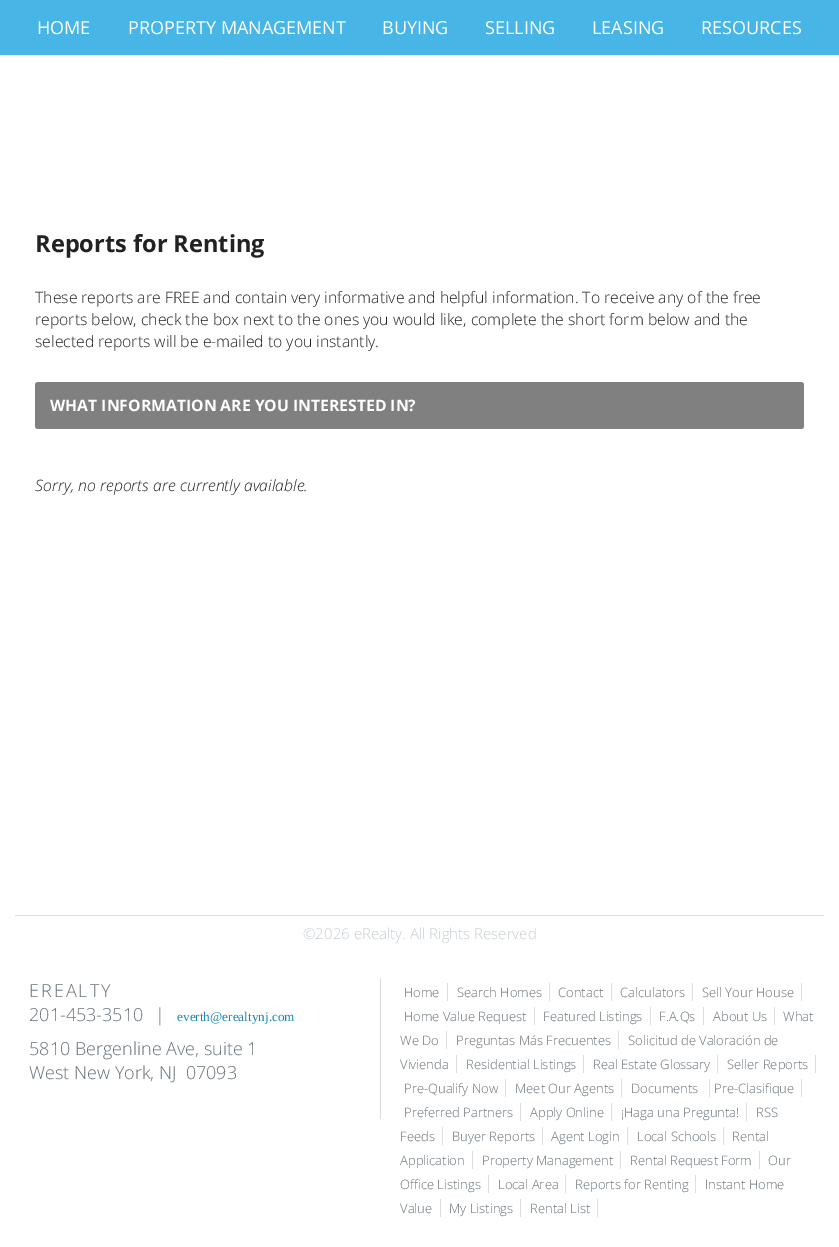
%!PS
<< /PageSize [839 1247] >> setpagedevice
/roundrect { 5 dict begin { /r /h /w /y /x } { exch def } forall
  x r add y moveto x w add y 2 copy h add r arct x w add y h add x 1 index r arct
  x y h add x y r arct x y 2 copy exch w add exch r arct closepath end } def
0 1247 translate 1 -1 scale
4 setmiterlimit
1 setgray
0 0 839 1247 rectfill
0.278 0.71 0.898 setrgbcolor
0 0 839 55 rectfill
/OpenSans-Regular [18 0 0 -18 0 0] selectfont
1 setgray
37 34 moveto (HOME) show
128 34 moveto (PROPERTY MANAGEMENT) show
382 34 moveto (BUYING) show
485 34 moveto (SELLING) show
592 34 moveto (LEASING) show
701 34 moveto (RESOURCES) show
/OpenSans-Bold [23.6 0 0 -23.6 0 0] selectfont
0.133 setgray
35 252 moveto (Reports for Renting) show
/OpenSans-Light [15.75 0 0 -15.75 0 0] selectfont
35 303 moveto (These reports are FREE and contain very informative and helpful information. To receive any of the free) show
35 325 moveto (reports below, check the box next to the ones you would like, complete the short form below and the) show
35 347 moveto (selected reports will be e-mailed to you instantly.) show
0.502 setgray
35 382 769 47 3 roundrect fill
/OpenSans-Bold [15.75 0 0 -15.75 0 0] selectfont
1 setgray
50 411 moveto (WHAT INFORMATION ARE YOU INTERESTED IN?) show
/OpenSans-LightItalic [15.75 0 0 -15.75 0 0] selectfont
0.133 setgray
35 491 moveto (Sorry, no reports are currently available.) show
0.871 setgray
15 915 809 1 rectfill
/OpenSans-Light [15 0 0 -15 0 0] selectfont
0.773 0.804 0.824 setrgbcolor
303 939 moveto (©2026 eRealty. All Rights Reserved) show
0.855 setgray
380 978 1 141 rectfill
/OpenSans-Light [18 0 0 -18 0 0] selectfont
0.404 0.447 0.475 setrgbcolor
29 997 moveto 2 0 (EREALTY) ashow
29 1021 moveto (201-453-3510) show
155 1021 moveto (|) show
/LiberationSerif-Regular [13.25 0 0 -13.25 0 0] selectfont
0.086 0.525 0.718 setrgbcolor
177 1021 moveto (everth@erealtynj.com) show
/OpenSans-Light [18 0 0 -18 0 0] selectfont
0.404 0.447 0.475 setrgbcolor
29 1055 moveto (5810 Bergenline Ave, suite 1) show
29 1079 moveto (West New York, NJ  07093) show
/OpenSans-Light [13 0 0 -13 0 0] selectfont
404 997 moveto (Home) show
0.871 setgray
447 983 1 18 rectfill
0.404 0.447 0.475 setrgbcolor
457 997 moveto (Search Homes) show
0.871 setgray
549 983 1 18 rectfill
0.404 0.447 0.475 setrgbcolor
558 997 moveto (Contact) show
0.871 setgray
611 983 1 18 rectfill
0.404 0.447 0.475 setrgbcolor
620 997 moveto (Calculators) show
0.871 setgray
692 983 1 18 rectfill
0.404 0.447 0.475 setrgbcolor
702 997 moveto (Sell Your House) show
0.871 setgray
801 983 1 18 rectfill
0.404 0.447 0.475 setrgbcolor
404 1021 moveto (Home Value Request) show
0.871 setgray
534 1007 1 18 rectfill
0.404 0.447 0.475 setrgbcolor
543 1021 moveto (Featured Listings) show
0.871 setgray
650 1007 1 18 rectfill
0.404 0.447 0.475 setrgbcolor
659 1021 moveto (F.A.Qs) show
0.871 setgray
703 1007 1 18 rectfill
0.404 0.447 0.475 setrgbcolor
713 1021 moveto (About Us) show
0.871 setgray
774 1007 1 18 rectfill
0.404 0.447 0.475 setrgbcolor
783 1021 moveto (What) show
400 1045 moveto (We Do) show
0.871 setgray
446 1031 1 18 rectfill
0.404 0.447 0.475 setrgbcolor
456 1045 moveto (Preguntas Más Frecuentes) show
0.871 setgray
618 1031 1 18 rectfill
0.404 0.447 0.475 setrgbcolor
628 1045 moveto (Solicitud de Valoración de) show
400 1069 moveto (Vivienda) show
0.871 setgray
456 1055 1 18 rectfill
0.404 0.447 0.475 setrgbcolor
466 1069 moveto (Residential Listings) show
0.871 setgray
583 1055 1 18 rectfill
0.404 0.447 0.475 setrgbcolor
593 1069 moveto (Real Estate Glossary) show
0.871 setgray
717 1055 1 18 rectfill
0.404 0.447 0.475 setrgbcolor
727 1069 moveto (Seller Reports) show
0.871 setgray
815 1055 1 18 rectfill
0.404 0.447 0.475 setrgbcolor
404 1093 moveto (Pre-Qualify Now) show
0.871 setgray
505 1079 1 18 rectfill
0.404 0.447 0.475 setrgbcolor
515 1093 moveto (Meet Our Agents) show
0.871 setgray
621 1079 1 18 rectfill
0.404 0.447 0.475 setrgbcolor
631 1093 moveto (Documents) show
0.871 setgray
709 1079 1 18 rectfill
0.404 0.447 0.475 setrgbcolor
714 1093 moveto (Pre-Clasifique) show
0.871 setgray
801 1079 1 18 rectfill
0.404 0.447 0.475 setrgbcolor
404 1117 moveto (Preferred Partners) show
0.871 setgray
520 1103 1 18 rectfill
0.404 0.447 0.475 setrgbcolor
530 1117 moveto (Apply Online) show
0.871 setgray
611 1103 1 18 rectfill
0.404 0.447 0.475 setrgbcolor
621 1117 moveto (¡Haga una Pregunta!) show
0.871 setgray
746 1103 1 18 rectfill
0.404 0.447 0.475 setrgbcolor
756 1117 moveto (RSS) show
400 1141 moveto (Feeds) show
0.871 setgray
442 1127 1 18 rectfill
0.404 0.447 0.475 setrgbcolor
452 1141 moveto (Buyer Reports) show
0.871 setgray
542 1127 1 18 rectfill
0.404 0.447 0.475 setrgbcolor
551 1141 moveto (Agent Login) show
0.871 setgray
627 1127 1 18 rectfill
0.404 0.447 0.475 setrgbcolor
637 1141 moveto (Local Schools) show
0.871 setgray
723 1127 1 18 rectfill
0.404 0.447 0.475 setrgbcolor
732 1141 moveto (Rental) show
400 1165 moveto (Application) show
0.871 setgray
472 1151 1 18 rectfill
0.404 0.447 0.475 setrgbcolor
482 1165 moveto (Property Management) show
0.871 setgray
620 1151 1 18 rectfill
0.404 0.447 0.475 setrgbcolor
630 1165 moveto (Rental Request Form) show
0.871 setgray
759 1151 1 18 rectfill
0.404 0.447 0.475 setrgbcolor
768 1165 moveto (Our) show
400 1189 moveto (Office Listings) show
0.871 setgray
488 1175 1 18 rectfill
0.404 0.447 0.475 setrgbcolor
498 1189 moveto (Local Area) show
0.871 setgray
565 1175 1 18 rectfill
0.404 0.447 0.475 setrgbcolor
575 1189 moveto (Reports for Renting) show
0.871 setgray
695 1175 1 18 rectfill
0.404 0.447 0.475 setrgbcolor
705 1189 moveto (Instant Home) show
400 1213 moveto (Value) show
0.871 setgray
440 1199 1 18 rectfill
0.404 0.447 0.475 setrgbcolor
449 1213 moveto (My Listings) show
0.871 setgray
520 1199 1 18 rectfill
0.404 0.447 0.475 setrgbcolor
530 1213 moveto (Rental List) show
0.871 setgray
597 1199 1 18 rectfill
showpage
